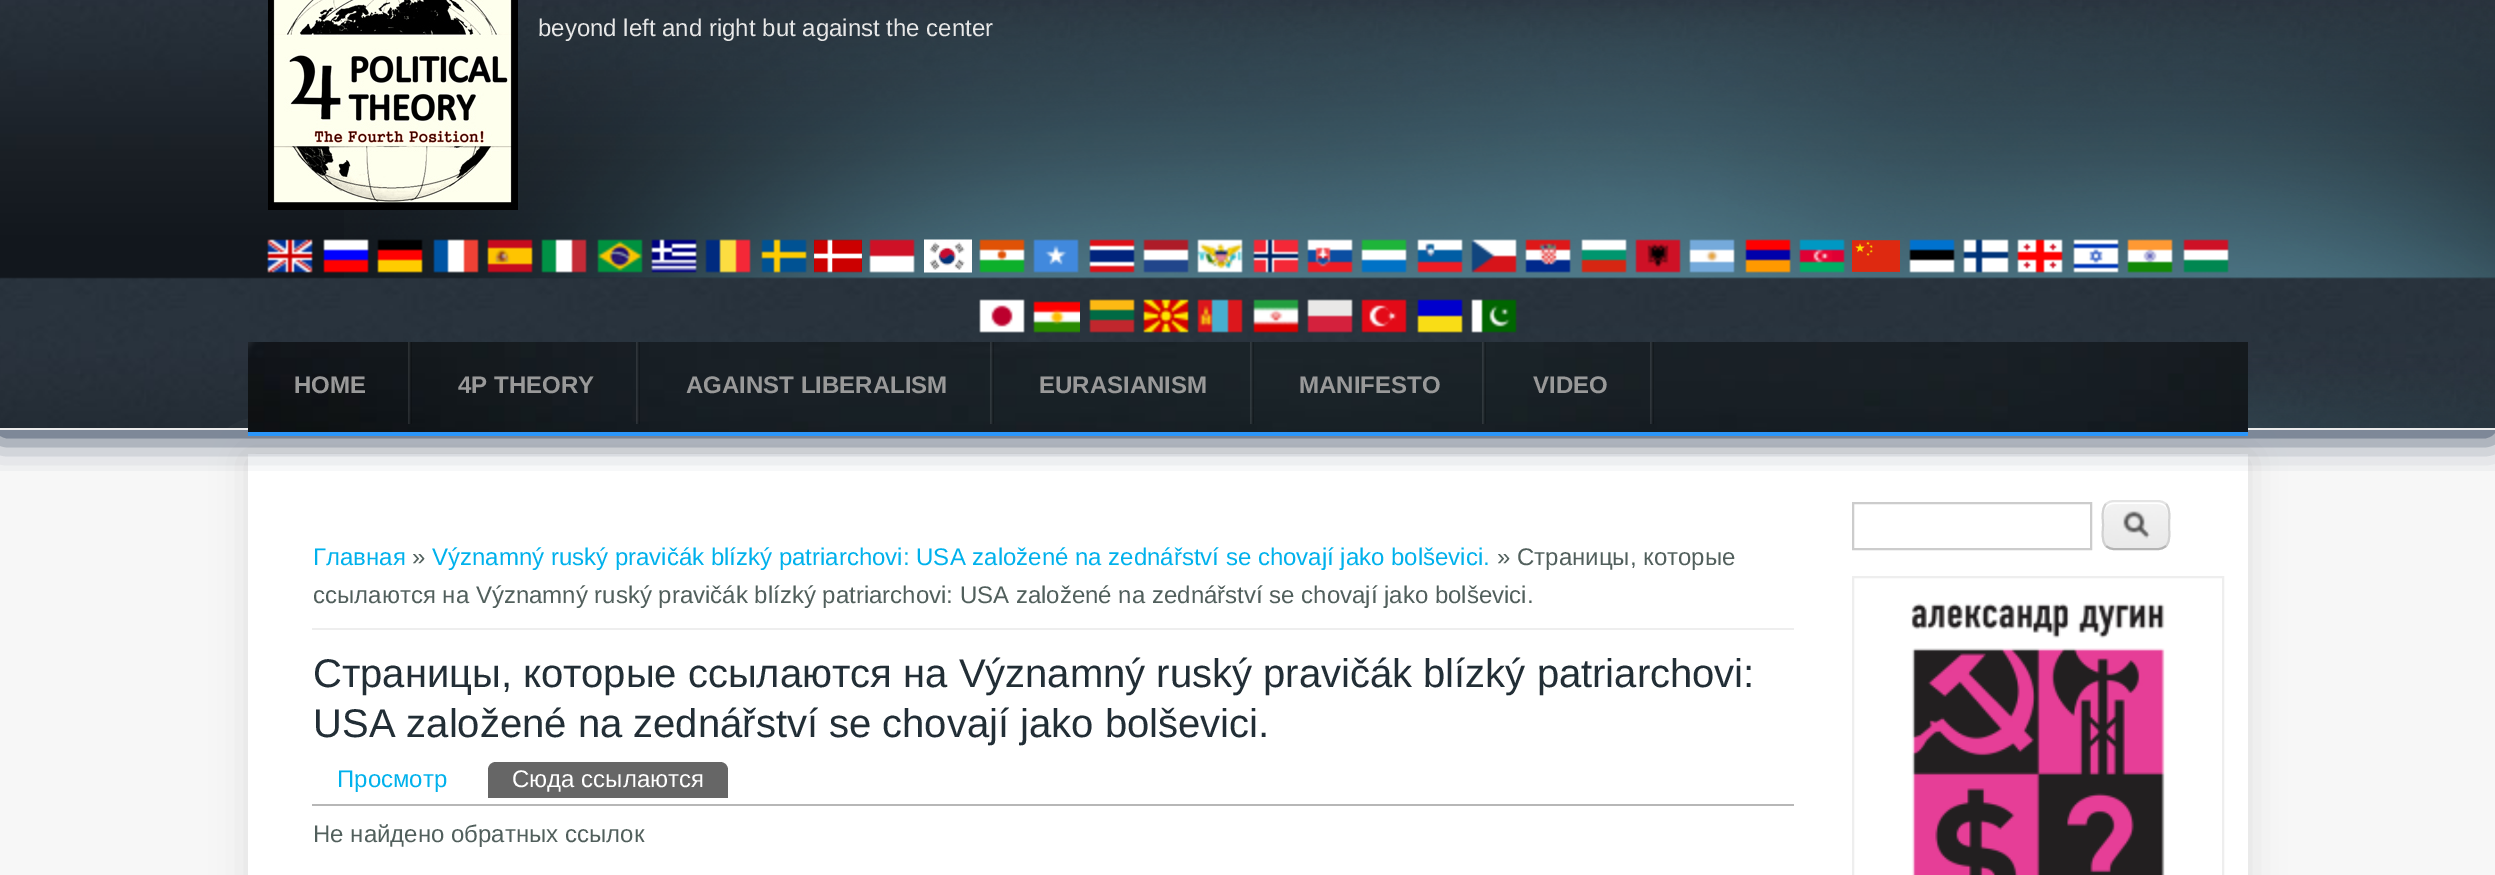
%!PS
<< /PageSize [2495 875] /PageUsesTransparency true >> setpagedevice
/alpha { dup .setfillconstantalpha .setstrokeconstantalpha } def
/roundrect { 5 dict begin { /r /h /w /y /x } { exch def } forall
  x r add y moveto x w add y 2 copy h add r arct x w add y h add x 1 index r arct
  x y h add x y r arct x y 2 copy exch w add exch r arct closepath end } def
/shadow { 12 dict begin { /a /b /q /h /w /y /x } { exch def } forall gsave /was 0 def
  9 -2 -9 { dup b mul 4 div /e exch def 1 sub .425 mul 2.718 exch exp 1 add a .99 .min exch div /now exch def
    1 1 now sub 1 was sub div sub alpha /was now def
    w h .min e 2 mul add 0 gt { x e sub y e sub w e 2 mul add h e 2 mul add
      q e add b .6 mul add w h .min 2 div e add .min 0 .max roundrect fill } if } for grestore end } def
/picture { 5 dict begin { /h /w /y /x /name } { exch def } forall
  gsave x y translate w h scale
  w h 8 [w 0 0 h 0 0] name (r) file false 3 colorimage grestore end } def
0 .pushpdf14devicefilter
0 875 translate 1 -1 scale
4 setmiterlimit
0.969 setgray
0 0 2495 875 rectfill
(img1.rgb) 0 0 2495 428 picture
0.867 setgray
248 458 2000 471 0 18 1 shadow
1 setgray
248 454 2000 421 rectfill
gsave
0 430 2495 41 rectclip
0.008 0.09 0.212 setrgbcolor
-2 -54 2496 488 0 18 1 shadow
grestore
(img2.rgb) 344 0 2151 428 picture
0.922 setgray
0 428 2495 2 rectfill
(img3.rgb) 268 0 250 210 picture
/LiberationSans-Regular [24 0 0 -24 0 0] selectfont
0.906 setgray
538 36 moveto (beyond left and right but against the center) show
(img4.rgb) 267 239 46 34 picture
(img5.rgb) 323 239 46 34 picture
(img6.rgb) 377 239 46 34 picture
(img7.rgb) 433 239 46 34 picture
(img8.rgb) 487 239 46 34 picture
(img9.rgb) 541 239 46 34 picture
(img10.rgb) 597 239 46 34 picture
(img11.rgb) 651 239 46 34 picture
(img12.rgb) 705 239 46 34 picture
(img13.rgb) 761 239 46 34 picture
(img14.rgb) 814 239 48 34 picture
(img15.rgb) 869 239 46 34 picture
(img16.rgb) 924 239 48 34 picture
(img17.rgb) 979 239 46 34 picture
(img18.rgb) 1033 239 46 34 picture
(img19.rgb) 1089 239 46 34 picture
(img20.rgb) 1143 239 46 34 picture
(img21.rgb) 1197 239 46 34 picture
(img22.rgb) 1253 239 46 34 picture
(img23.rgb) 1307 239 46 34 picture
(img24.rgb) 1361 239 46 34 picture
(img25.rgb) 1417 239 46 34 picture
(img26.rgb) 1471 239 46 34 picture
(img27.rgb) 1525 239 46 34 picture
(img28.rgb) 1581 239 46 34 picture
(img29.rgb) 1635 239 46 34 picture
(img30.rgb) 1689 239 46 34 picture
(img31.rgb) 1745 239 46 34 picture
(img32.rgb) 1799 239 46 34 picture
(img33.rgb) 1852 240 48 32 picture
(img34.rgb) 1909 239 46 34 picture
(img35.rgb) 1963 239 46 34 picture
(img36.rgb) 2017 239 46 34 picture
(img37.rgb) 2073 239 46 34 picture
(img38.rgb) 2127 239 46 34 picture
(img39.rgb) 2183 239 46 34 picture
(img40.rgb) 979 299 46 34 picture
(img41.rgb) 1033 301 47 32 picture
(img42.rgb) 1089 299 46 34 picture
(img43.rgb) 1143 299 46 34 picture
(img44.rgb) 1197 299 46 34 picture
(img45.rgb) 1253 299 46 34 picture
(img46.rgb) 1307 299 46 34 picture
(img47.rgb) 1361 299 46 34 picture
(img48.rgb) 1417 299 46 34 picture
(img49.rgb) 1471 299 46 34 picture
(img50.rgb) 248 342 2000 90 picture
0.169 0.588 0.98 setrgbcolor
248 432 2000 4 rectfill
(img51.rgb) 408 342 4 82 picture
/LiberationSans-Bold [24 0 0 -24 0 0] selectfont
0.6 setgray
294 393 moveto (HOME) show
(img52.rgb) 636 342 4 82 picture
458 393 moveto (4P THEORY) show
(img53.rgb) 990 342 4 82 picture
686 393 moveto (AGAINST LIBERALISM) show
(img54.rgb) 1250 342 4 82 picture
1039 393 moveto (EURASIANISM) show
(img55.rgb) 1482 342 4 82 picture
1299 393 moveto (MANIFESTO) show
(img56.rgb) 1650 342 4 82 picture
1533 393 moveto (VIDEO) show
0.933 setgray
312 628 1482 2 rectfill
/LiberationSans-Regular [24 0 0 -24 0 0] selectfont
0 0.694 0.925 setrgbcolor
313 565 moveto (Главная) show
0.318 0.373 0.361 setrgbcolor
412 565 moveto (») show
0 0.694 0.925 setrgbcolor
432 565 moveto (Významný ruský pravičák blízký patriarchovi: USA založené na zednářství se chovají jako bolševici.) show
0.318 0.373 0.361 setrgbcolor
1497 565 moveto (» Страницы, которые) show
313 603 moveto (ссылаются на Významný ruský pravičák blízký patriarchovi: USA založené na zednářství se chovají jako bolševici.) show
/LiberationSans-Regular [40 0 0 -40 0 0] selectfont
0.133 0.18 0.212 setrgbcolor
313 687 moveto (Страницы, которые ссылаются на Významný ruský pravičák blízký patriarchovi:) show
313 737 moveto (USA založené na zednářství se chovají jako bolševici.) show
0.718 setgray
312 804 1482 2 rectfill
/LiberationSans-Regular [24 0 0 -24 0 0] selectfont
0 0.694 0.925 setrgbcolor
337 787 moveto (Просмотр) show
0.4 setgray
newpath 496 762 moveto 720 762 lineto 724.5 762 728 765.5 728 770 curveto 728 798 lineto 488 798 lineto 488 770 lineto 488 765.5 491.5 762 496 762 curveto closepath fill
1 setgray
512 787 moveto (Сюда ссылаются) show
0.318 0.373 0.361 setrgbcolor
313 842 moveto (Не найдено обратных ссылок) show
0.8 setgray
2 setlinewidth
1853 503 238 46 rectstroke
(img57.rgb) 2102 502 68 48 picture
1 setgray
newpath 2114 504 moveto 2158 504 lineto 2164 504 2168 508 2168 514 curveto 2168 502 2161 502 2151 502 curveto 2121 502 lineto 2111 502 2104 502 2104 514 curveto 2104 508 2108 504 2114 504 curveto closepath fill
0.894 setgray
newpath 2106 504 moveto 2108.5 502 2111 501 2114 501 curveto 2158 501 lineto 2161 501 2163.5 502 2166 504 curveto stroke
0.824 setgray
newpath 2166 504 moveto 2171 509.5 2169 518.5 2169 525 curveto 2169 531.5 2171 540.5 2166 546 curveto stroke
0.706 setgray
newpath 2166 546 moveto 2163.5 548 2161 549 2158 549 curveto 2114 549 lineto 2111 549 2108.5 548 2106 546 curveto stroke
0.824 setgray
newpath 2106 546 moveto 2101 540.5 2103 531.5 2103 525 curveto 2103 518.5 2101 509.5 2106 504 curveto stroke
0.933 setgray
1853 577 370 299 rectstroke
(img58.rgb) 1911 603 254 272 picture
.poppdf14devicefilter showpage
